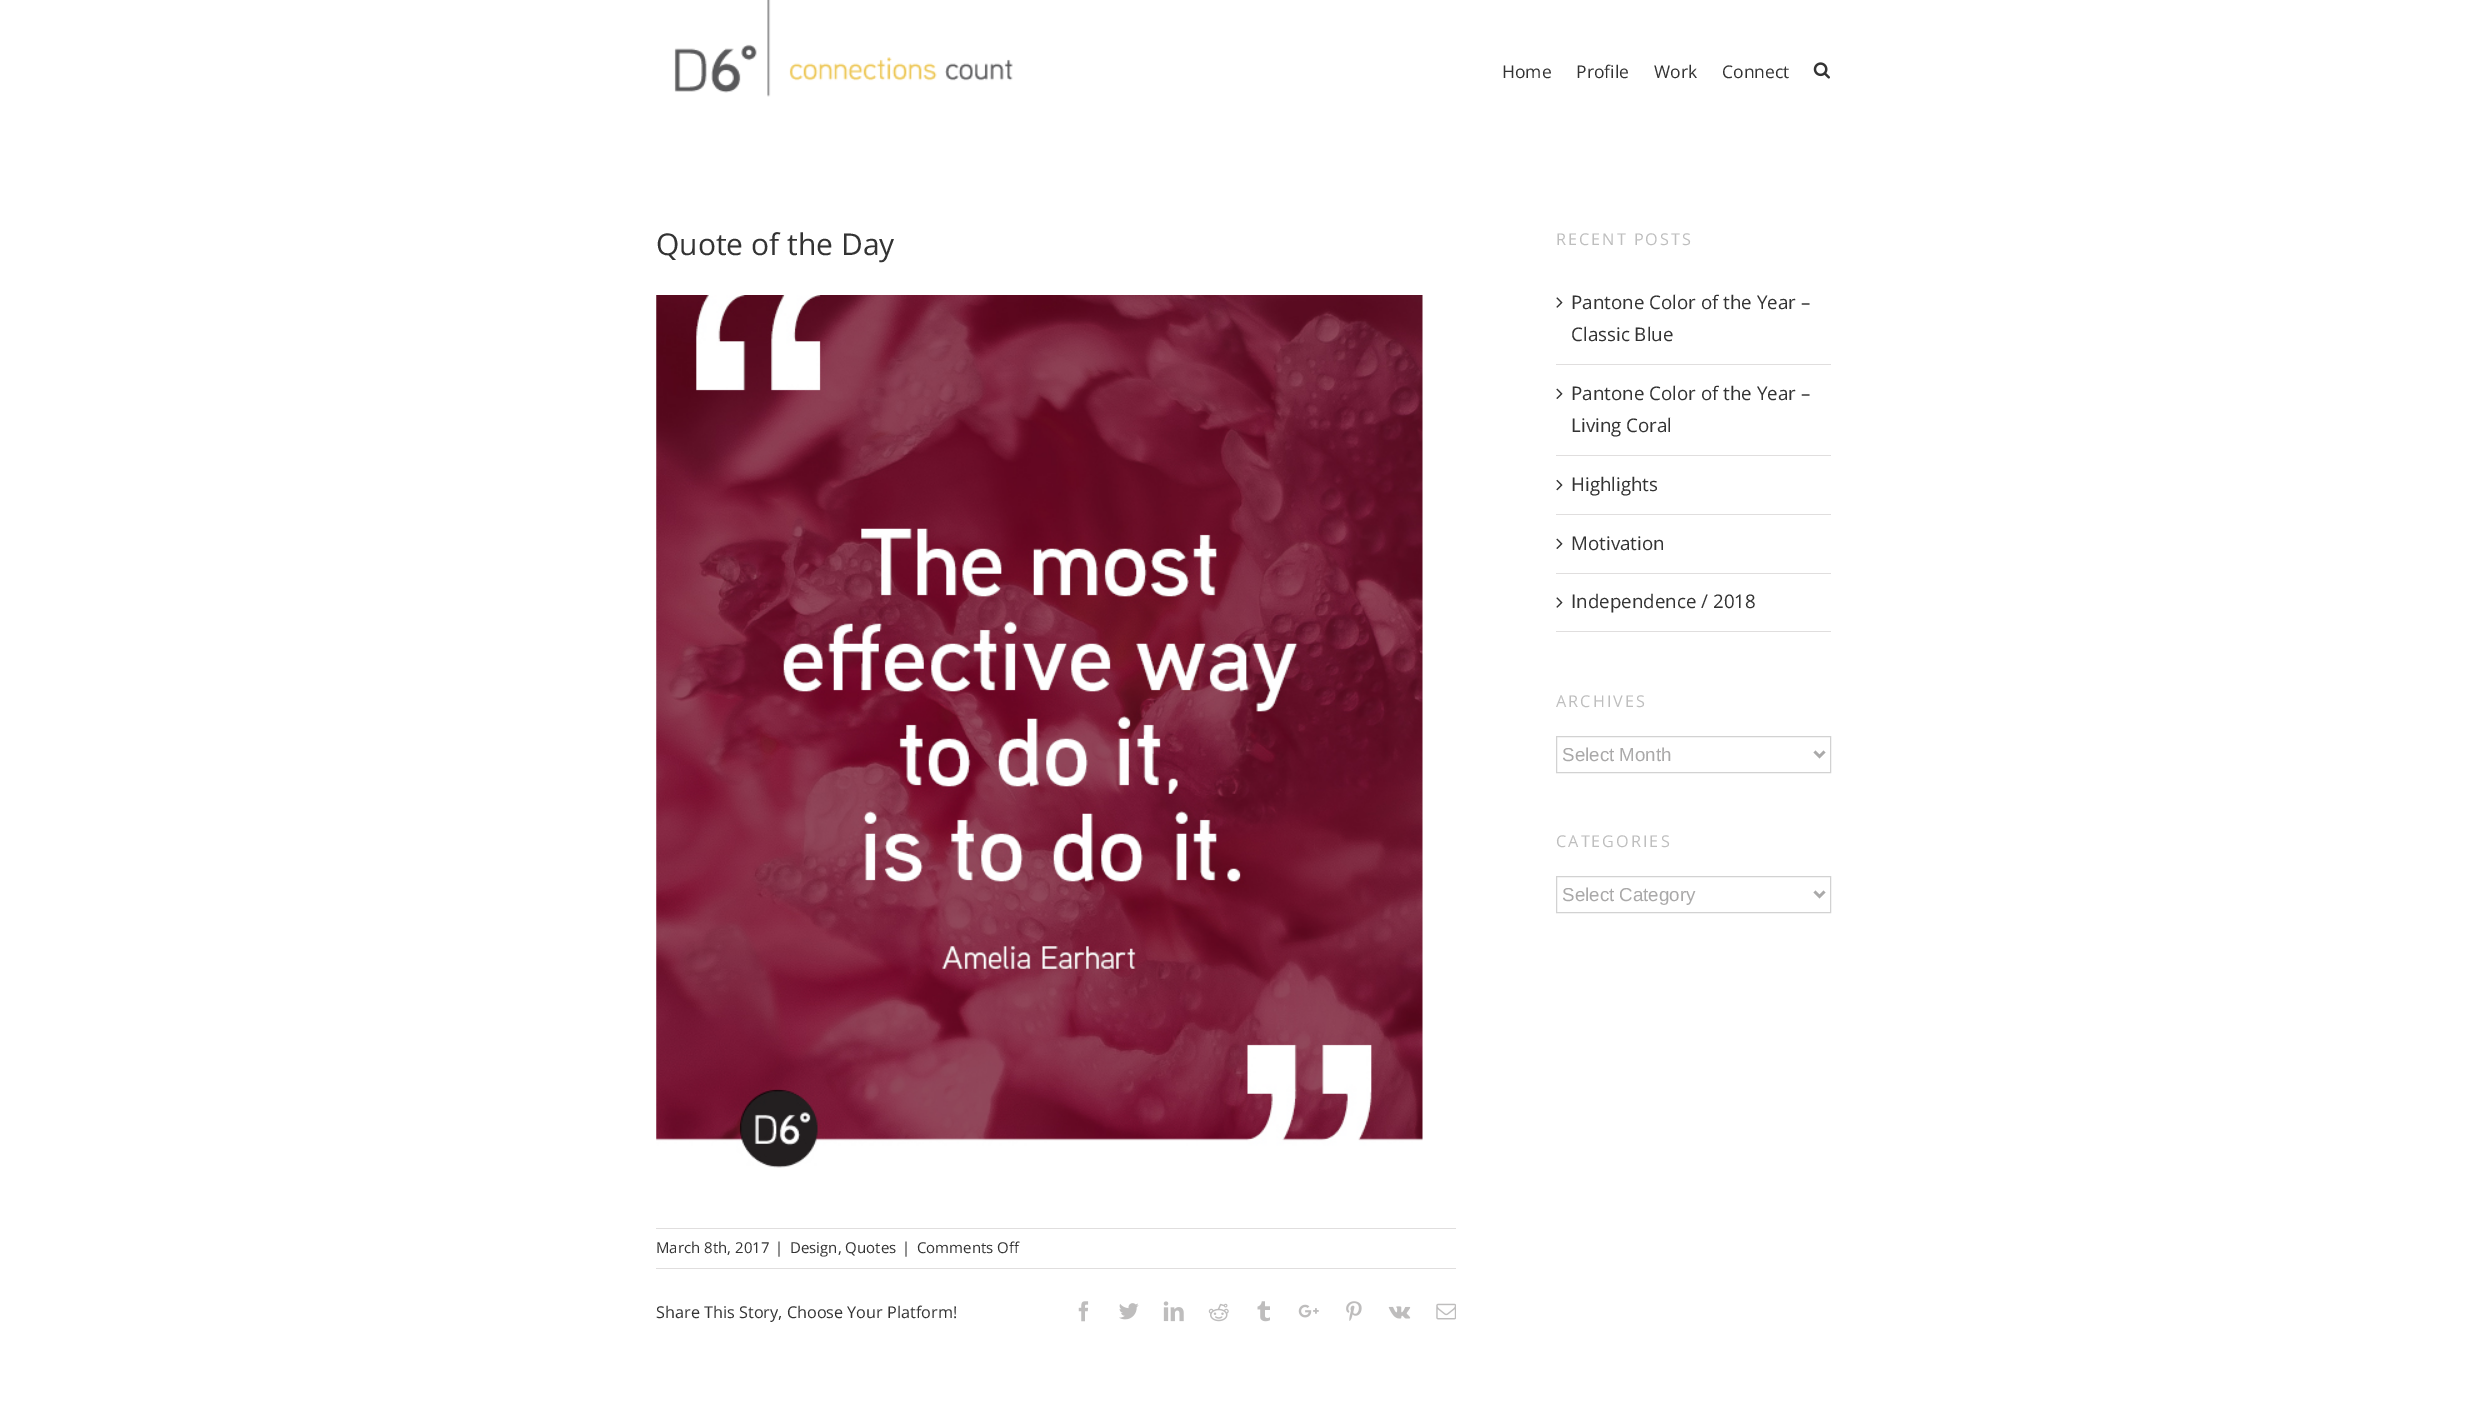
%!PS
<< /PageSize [2486 1402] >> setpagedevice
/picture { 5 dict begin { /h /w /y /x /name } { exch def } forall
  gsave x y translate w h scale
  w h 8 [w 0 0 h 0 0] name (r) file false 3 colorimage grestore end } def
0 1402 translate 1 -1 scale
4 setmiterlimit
1 setgray
0 0 2486 1402 rectfill
(img1.rgb) 674 0 339 97 picture
/OpenSans-Regular [17.5 0 0 -17.5 0 0] selectfont
0.2 setgray
1502 78 moveto (Home) show
1576 78 moveto (Profile) show
1654 78 moveto (Work) show
1722 78 moveto (Connect) show
(img2.rgb) 1813 62 17 17 picture
/OpenSans-Regular [30 0 0 -30 0 0] selectfont
656 255 moveto (Quote of the Day) show
(img3.rgb) 656 295 767 873 picture
0.878 0.871 0.871 setrgbcolor
656 1228 800 1 rectfill
656 1268 800 1 rectfill
/OpenSans-Regular [15 0 0 -15 0 0] selectfont
0.2 setgray
656 1253 moveto (March 8th, 2017) show
775 1253 moveto (|) show
790 1253 moveto (Design, Quotes) show
902 1253 moveto (|) show
917 1253 moveto (Comments Off) show
/OpenSans-Regular [16.25 0 0 -16.25 0 0] selectfont
656 1318 moveto (Share This Story, Choose Your Platform!) show
(img4.rgb) 1078 1301 11 21 picture
(img5.rgb) 1119 1303 20 17 picture
(img6.rgb) 1163 1301 21 21 picture
(img7.rgb) 1208 1303 21 19 picture
(img8.rgb) 1257 1301 13 21 picture
(img9.rgb) 1298 1304 21 14 picture
(img10.rgb) 1346 1301 16 20 picture
(img11.rgb) 1388 1306 23 13 picture
(img12.rgb) 1436 1303 20 17 picture
0.745 setgray
1556 245 moveto 2 0 (RECENT POSTS) ashow
0.878 0.871 0.871 setrgbcolor
1556 364 275 1 rectfill
(img13.rgb) 1556 297 7 11 picture
/OpenSans-Regular [18.75 0 0 -18.75 0 0] selectfont
0.2 setgray
1571 309 moveto (Pantone Color of the Year –) show
1571 341 moveto (Classic Blue) show
0.878 0.871 0.871 setrgbcolor
1556 455 275 1 rectfill
(img14.rgb) 1556 388 7 11 picture
0.2 setgray
1571 400 moveto (Pantone Color of the Year –) show
1571 432 moveto (Living Coral) show
0.878 0.871 0.871 setrgbcolor
1556 514 275 1 rectfill
(img15.rgb) 1556 479 7 12 picture
0.2 setgray
1571 491 moveto (Highlights) show
0.878 0.871 0.871 setrgbcolor
1556 573 275 1 rectfill
(img14.rgb) 1556 538 7 11 picture
0.2 setgray
1571 550 moveto (Motivation) show
0.878 0.871 0.871 setrgbcolor
1556 631 275 1 rectfill
(img13.rgb) 1556 597 7 11 picture
0.2 setgray
1571 608 moveto (Independence / 2018) show
/OpenSans-Regular [16.25 0 0 -16.25 0 0] selectfont
0.745 setgray
1556 707 moveto 2 0 (ARCHIVES) ashow
0.824 setgray
1556.5 736.5 274 36 rectstroke
0.667 0.663 0.663 setrgbcolor
2.5 setlinewidth
newpath 1814.5 751.5 moveto 1819.5 756.5 lineto 1824.5 751.5 lineto stroke
/LiberationSans-Regular [18.75 0 0 -18.75 0 0] selectfont
1562 761 moveto (Select Month) show
/OpenSans-Regular [16.25 0 0 -16.25 0 0] selectfont
0.745 setgray
1556 847 moveto 2 0 (CATEGORIES) ashow
0.824 setgray
1 setlinewidth
1556.5 876.5 274 36 rectstroke
0.667 0.663 0.663 setrgbcolor
2.5 setlinewidth
newpath 1814.5 891.5 moveto 1819.5 896.5 lineto 1824.5 891.5 lineto stroke
/LiberationSans-Regular [18.75 0 0 -18.75 0 0] selectfont
1562 901 moveto (Select Category) show
showpage
